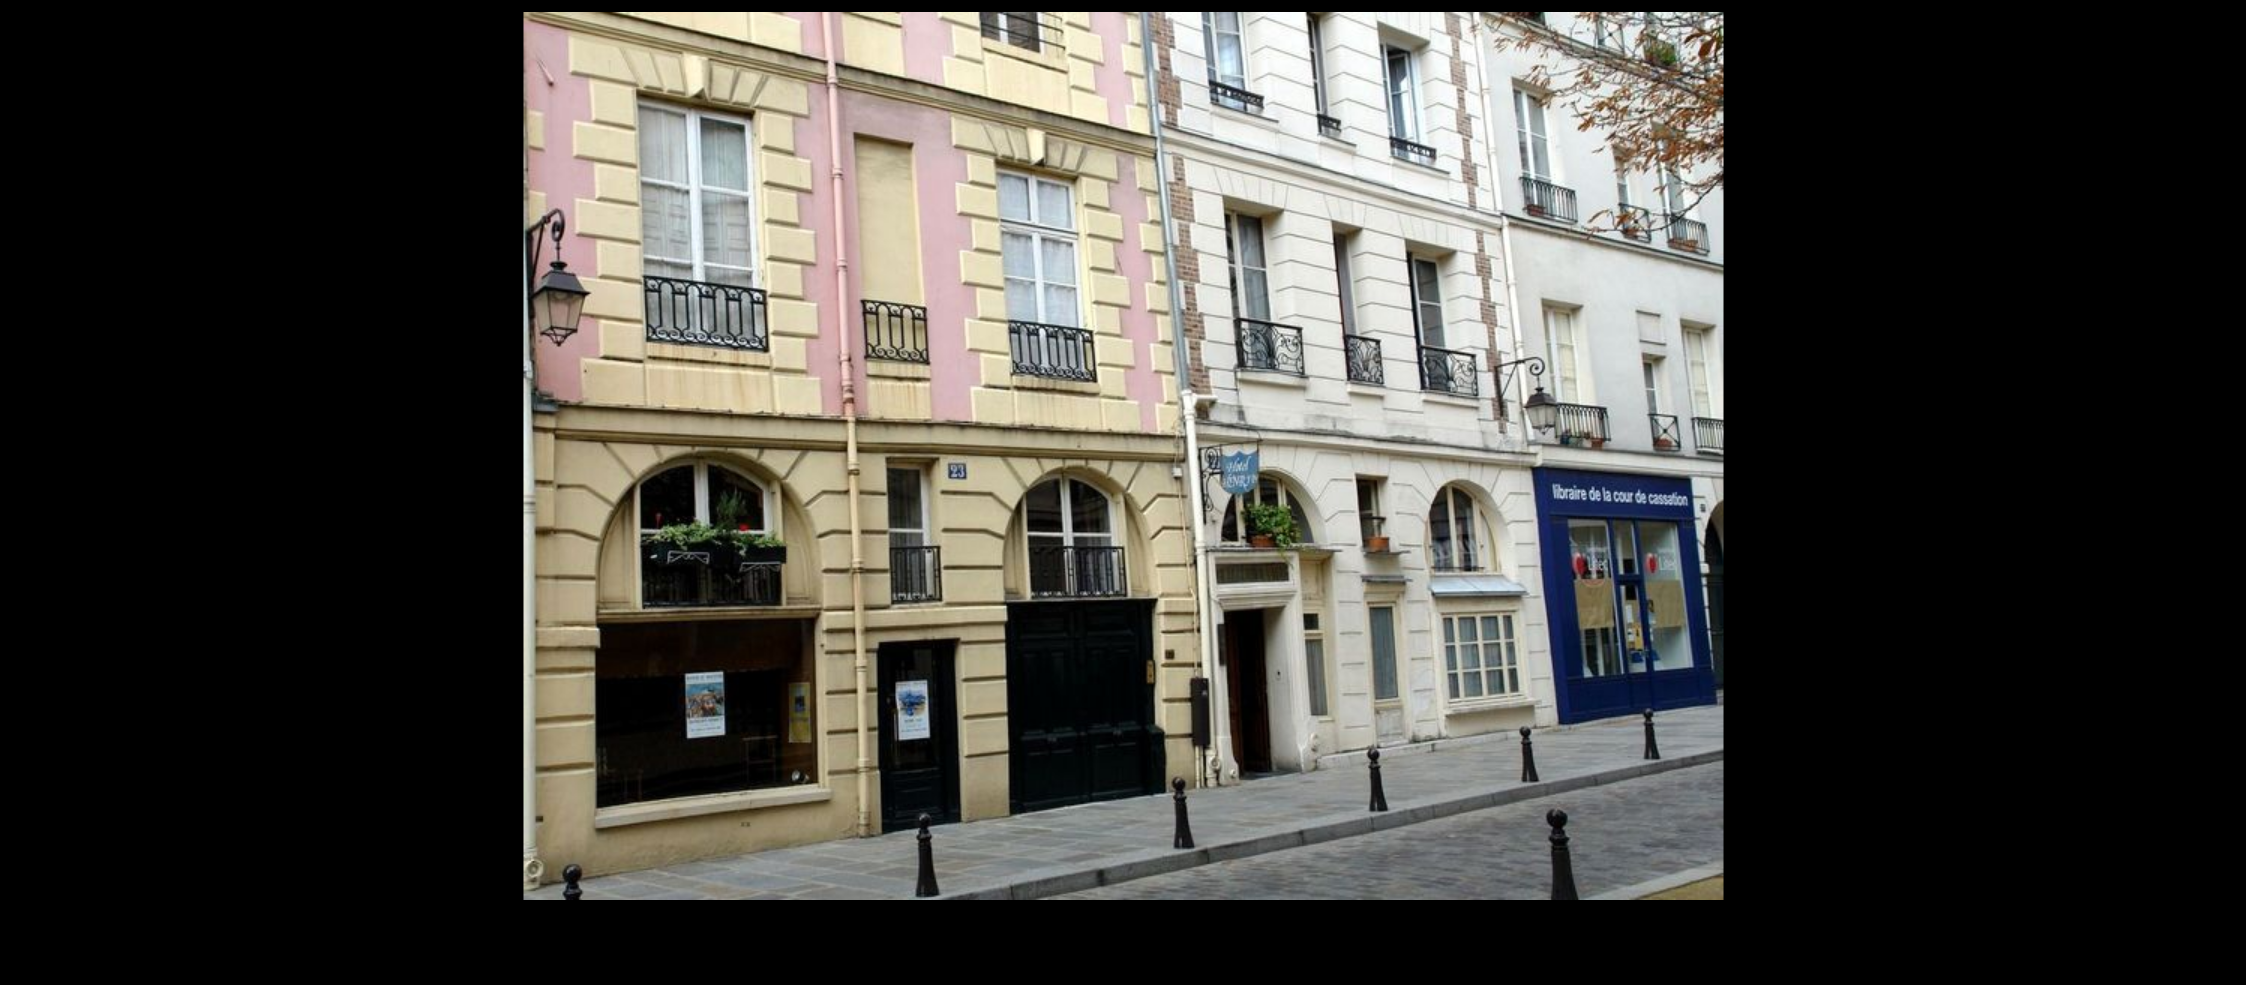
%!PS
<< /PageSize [2246 985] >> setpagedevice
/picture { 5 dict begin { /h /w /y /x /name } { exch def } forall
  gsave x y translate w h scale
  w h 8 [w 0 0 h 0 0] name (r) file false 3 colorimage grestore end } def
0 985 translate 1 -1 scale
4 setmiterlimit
0 setgray
0 0 2246 985 rectfill
(img1.rgb) 523 12 1201 888 picture
showpage
